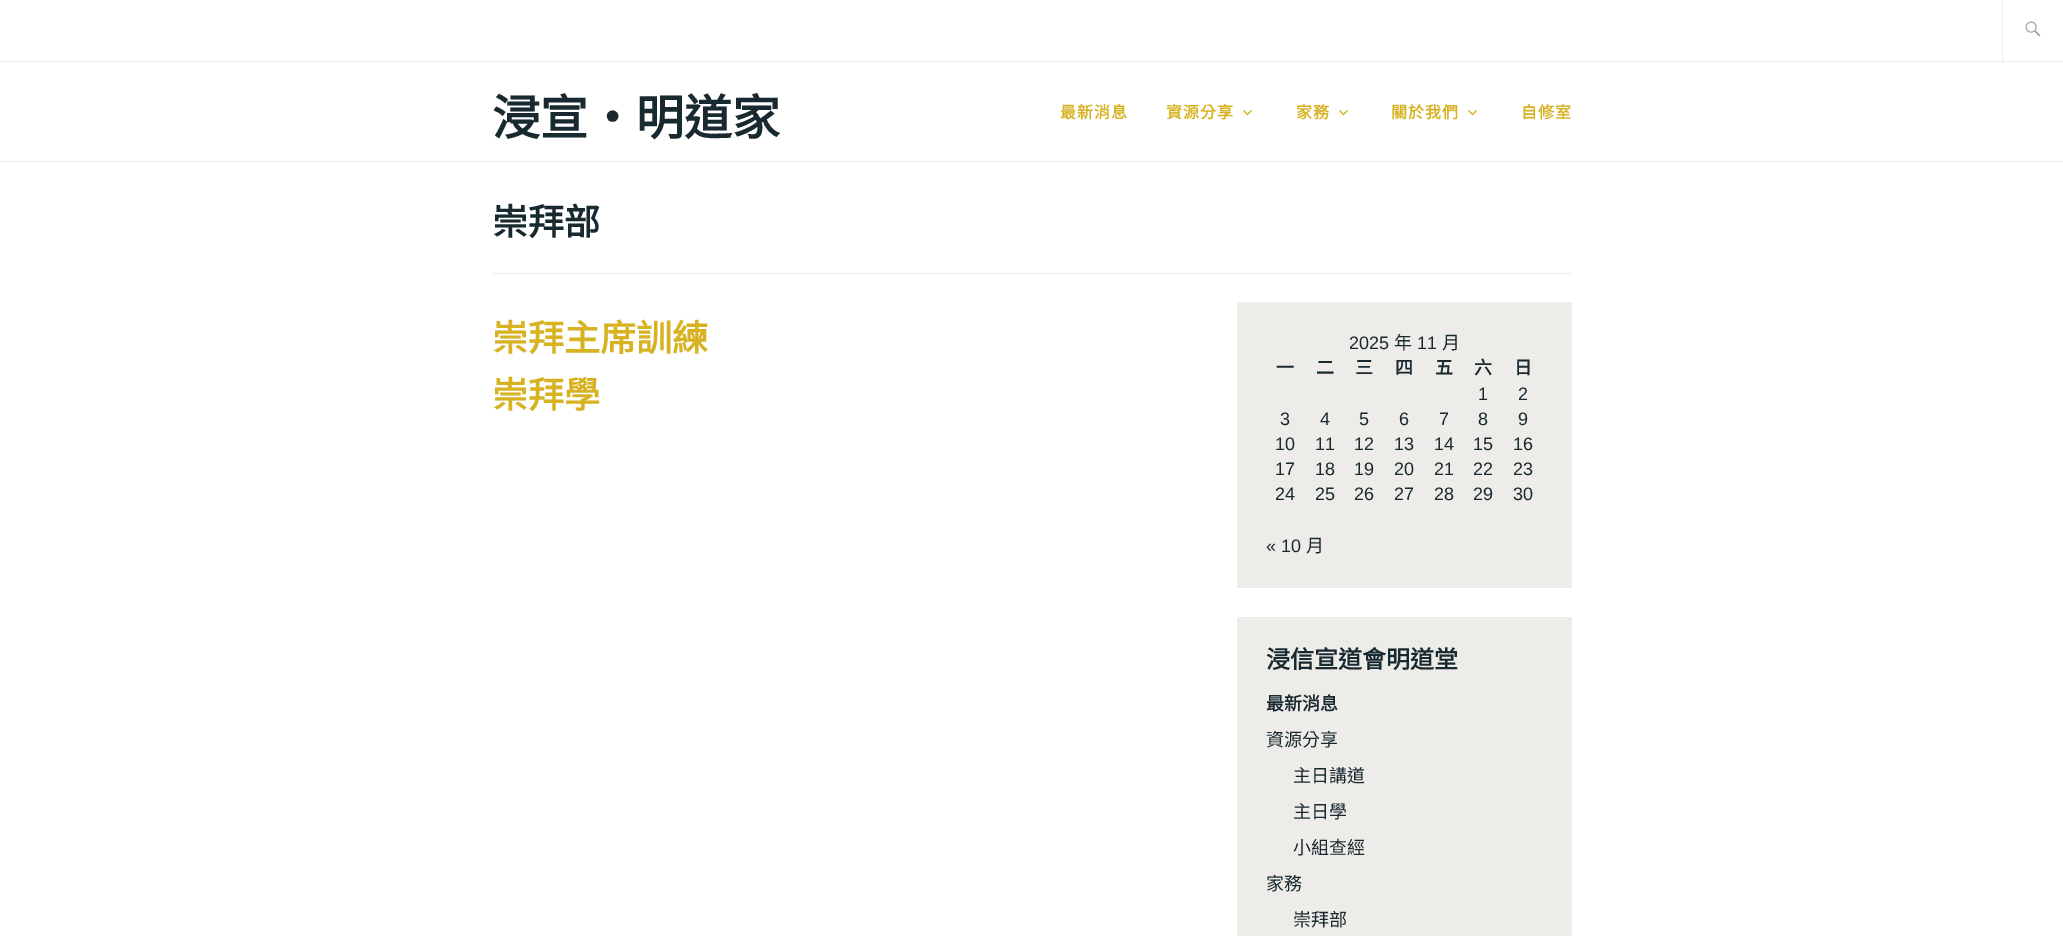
%!PS
<< /PageSize [2063 936] >> setpagedevice
/picture { 5 dict begin { /h /w /y /x /name } { exch def } forall
  gsave x y translate w h scale
  w h 8 [w 0 0 h 0 0] name (r) file false 3 colorimage grestore end } def
0 936 translate 1 -1 scale
4 setmiterlimit
1 setgray
0 0 2063 936 rectfill
0.933 0.925 0.91 setrgbcolor
0 161 2063 1 rectfill
0 61 2063 1 rectfill
2002 0 1 61 rectfill
(img1.rgb) 2025 21 16 16 picture
/NotoSansCJKTC-Bold [48 0 0 -48 0 0] selectfont
0.098 0.161 0.188 setrgbcolor
492 135 moveto (浸宣‧明道家) show
/NotoSansCJKTC-Bold [16 0 0 -16 0 0] selectfont
0.843 0.698 0.129 setrgbcolor
1060 118 moveto 1 0 (最新消息) ashow
1166 118 moveto 1 0 (資源分享) ashow
(img2.rgb) 1243 110 9 6 picture
1296 118 moveto 1 0 (家務) ashow
(img2.rgb) 1339 110 9 6 picture
1391 118 moveto 1 0 (關於我們) ashow
(img2.rgb) 1468 110 9 6 picture
1521 118 moveto 1 0 (自修室) ashow
0.933 0.925 0.91 setrgbcolor
492 273 1080 1 rectfill
/NotoSansCJKTC-Bold [36 0 0 -36 0 0] selectfont
0.098 0.161 0.188 setrgbcolor
492 235 moveto (崇拜部) show
0.843 0.698 0.129 setrgbcolor
492 351 moveto (崇拜主席訓練) show
492 408 moveto (崇拜學) show
0.933 0.925 0.91 setrgbcolor
1237 302 335 286 rectfill
/LiberationSans-Regular [18 0 0 -18 0 0] selectfont
0.098 0.161 0.188 setrgbcolor
1349 349 moveto (2025) show
/NotoSansCJKTC-Regular [18 0 0 -18 0 0] selectfont
1394 349 moveto (年) show
/LiberationSans-Regular [18 0 0 -18 0 0] selectfont
1417 349 moveto (11) show
/NotoSansCJKTC-Regular [18 0 0 -18 0 0] selectfont
1442 349 moveto (月) show
/NotoSansCJKTC-Bold [18 0 0 -18 0 0] selectfont
1276 374 moveto (一) show
1316 374 moveto (二) show
1355 374 moveto (三) show
1395 374 moveto (四) show
1435 374 moveto (五) show
1474 374 moveto (六) show
1514 374 moveto (日) show
/LiberationSans-Regular [18 0 0 -18 0 0] selectfont
1478 400 moveto (1) show
1518 400 moveto (2) show
1280 425 moveto (3) show
1320 425 moveto (4) show
1359 425 moveto (5) show
1399 425 moveto (6) show
1439 425 moveto (7) show
1478 425 moveto (8) show
1518 425 moveto (9) show
1275 450 moveto (10) show
1315 450 moveto (11) show
1354 450 moveto (12) show
1394 450 moveto (13) show
1434 450 moveto (14) show
1473 450 moveto (15) show
1513 450 moveto (16) show
1275 475 moveto (17) show
1315 475 moveto (18) show
1354 475 moveto (19) show
1394 475 moveto (20) show
1434 475 moveto (21) show
1473 475 moveto (22) show
1513 475 moveto (23) show
1275 500 moveto (24) show
1315 500 moveto (25) show
1354 500 moveto (26) show
1394 500 moveto (27) show
1434 500 moveto (28) show
1473 500 moveto (29) show
1513 500 moveto (30) show
1266 552 moveto (« 10) show
/NotoSansCJKTC-Regular [18 0 0 -18 0 0] selectfont
1306 552 moveto (月) show
0.933 0.925 0.91 setrgbcolor
1237 617 335 319 rectfill
/NotoSansCJKTC-Bold [24 0 0 -24 0 0] selectfont
0.098 0.161 0.188 setrgbcolor
1266 668 moveto (浸信宣道會明道堂) show
/NotoSansCJKTC-Bold [18 0 0 -18 0 0] selectfont
1266 710 moveto (最新消息) show
/NotoSansCJKTC-Regular [18 0 0 -18 0 0] selectfont
1266 746 moveto (資源分享) show
1293 782 moveto (主日講道) show
1293 818 moveto (主日學) show
1293 854 moveto (小組查經) show
1266 890 moveto (家務) show
1293 926 moveto (崇拜部) show
showpage
